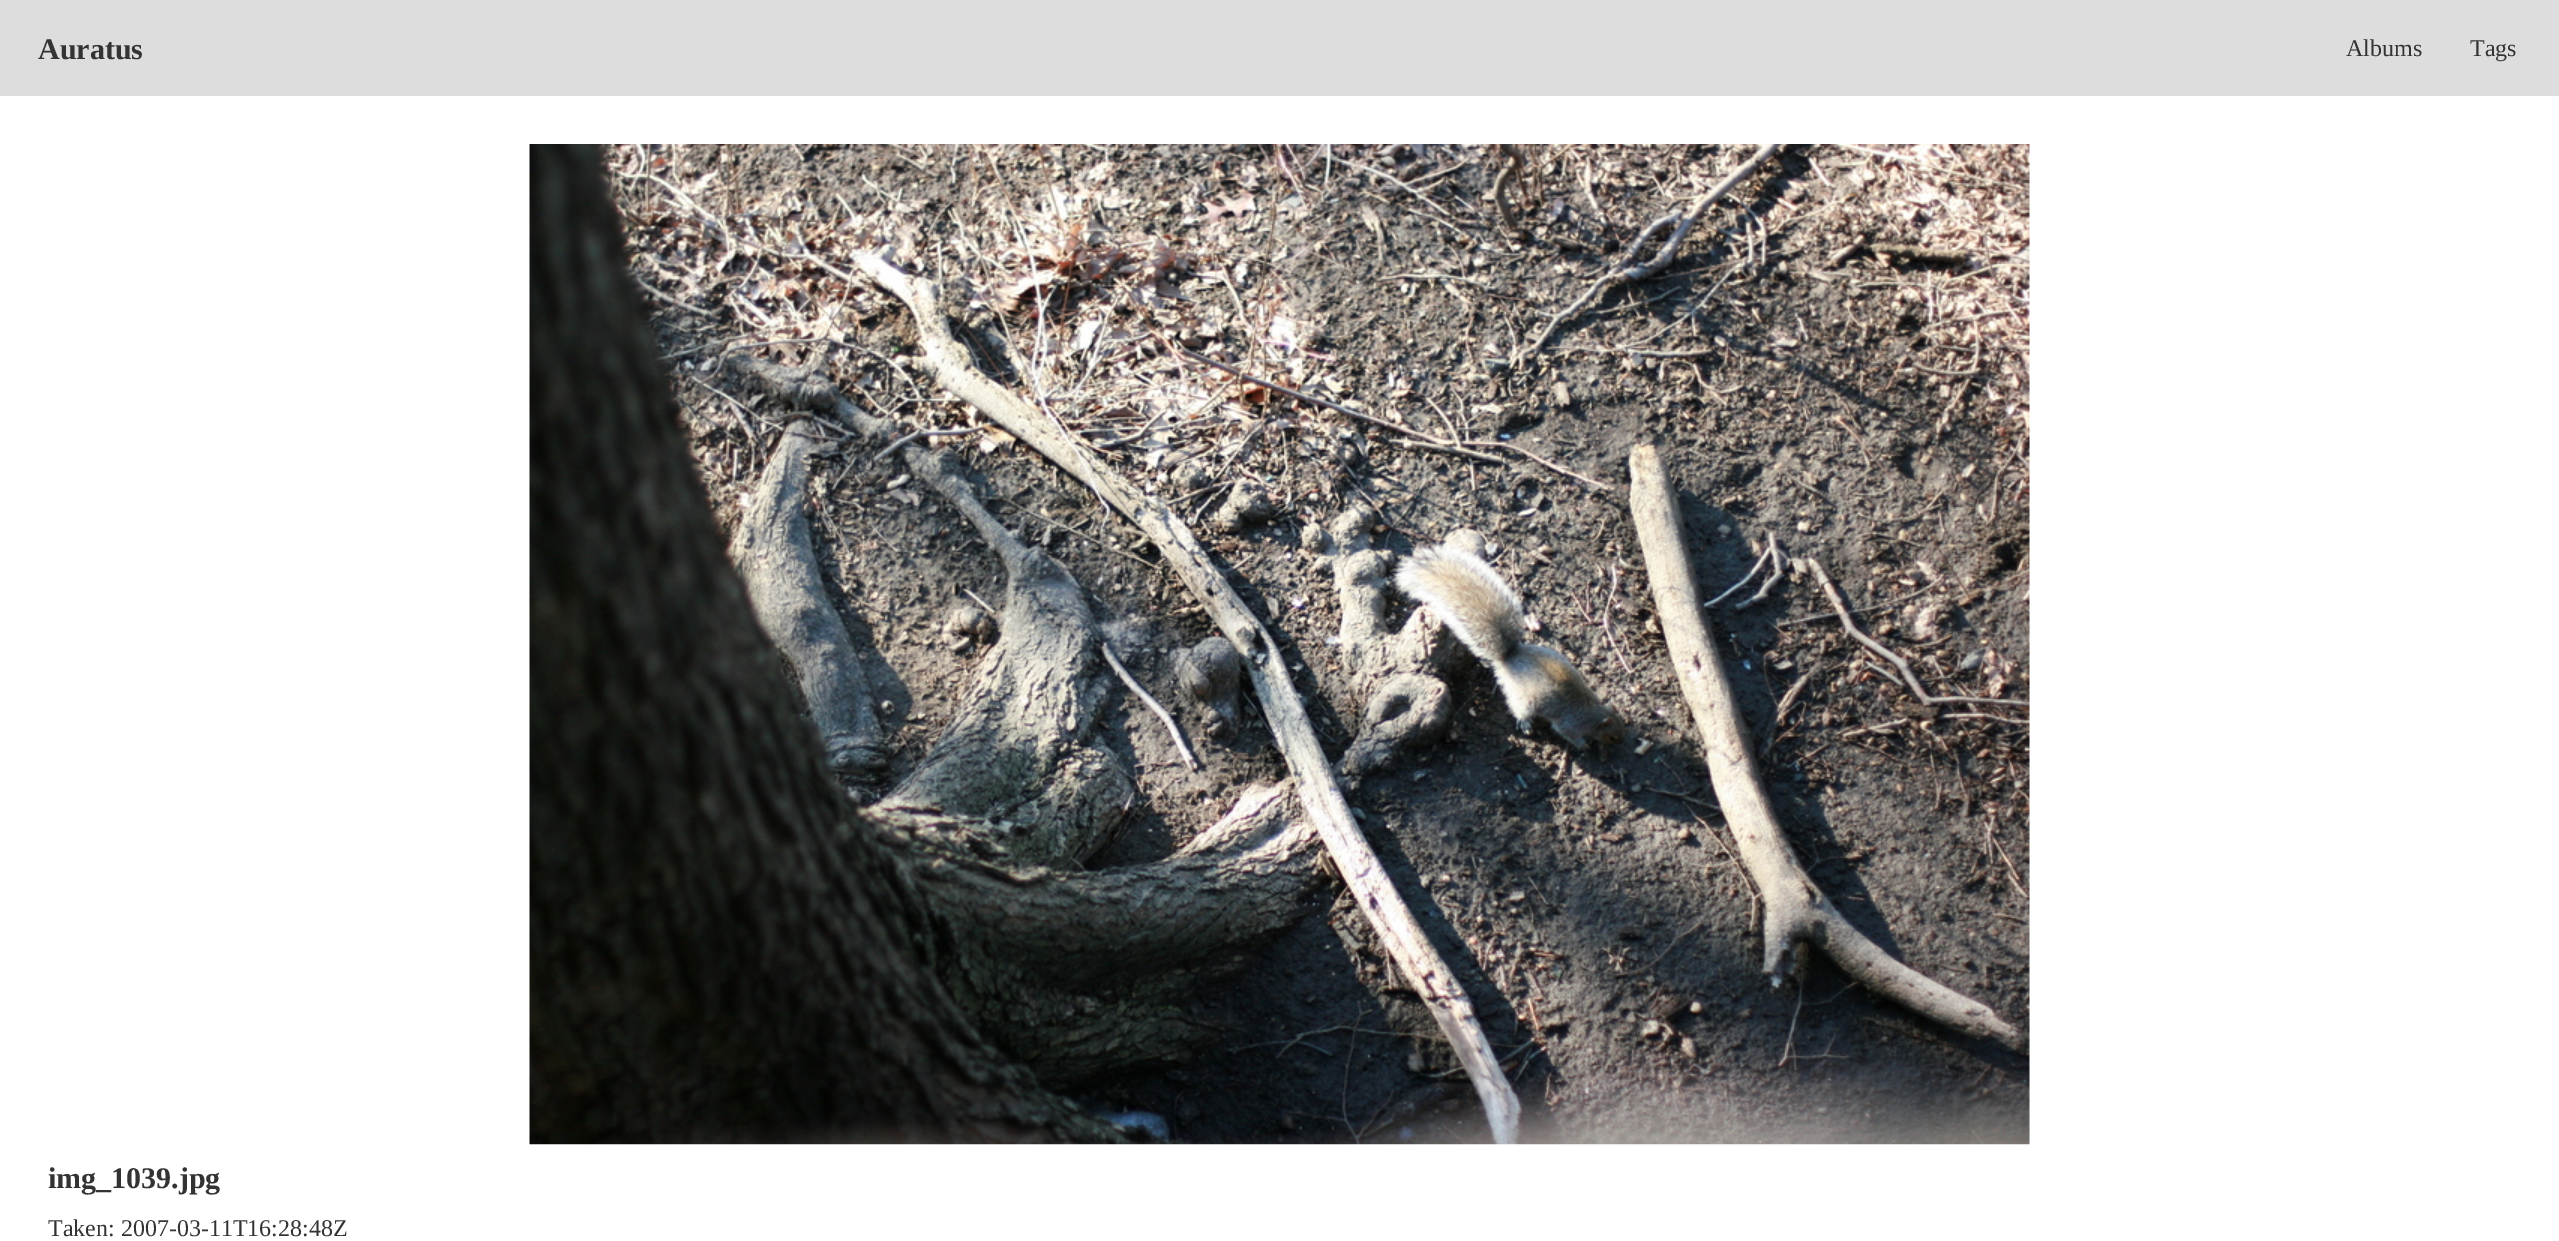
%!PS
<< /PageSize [2559 1241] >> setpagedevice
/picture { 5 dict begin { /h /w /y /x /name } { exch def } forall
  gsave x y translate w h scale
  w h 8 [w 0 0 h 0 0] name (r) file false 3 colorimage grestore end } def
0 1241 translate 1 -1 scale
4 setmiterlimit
1 setgray
0 0 2559 1241 rectfill
0.867 setgray
0 0 2559 96 rectfill
/LiberationSerif-Bold [30 0 0 -30 0 0] selectfont
0.2 setgray
38 59 moveto (Auratus) show
/LiberationSerif-Regular [24 0 0 -24 0 0] selectfont
2346 56 moveto (Albums) show
2470 56 moveto (Tags) show
(img1.rgb) 529 144 1501 1001 picture
/LiberationSerif-Bold [30 0 0 -30 0 0] selectfont
48 1188 moveto (img_1039.jpg) show
/LiberationSerif-Regular [24 0 0 -24 0 0] selectfont
48 1236 moveto (Taken: 2007-03-11T16:28:48Z) show
showpage
